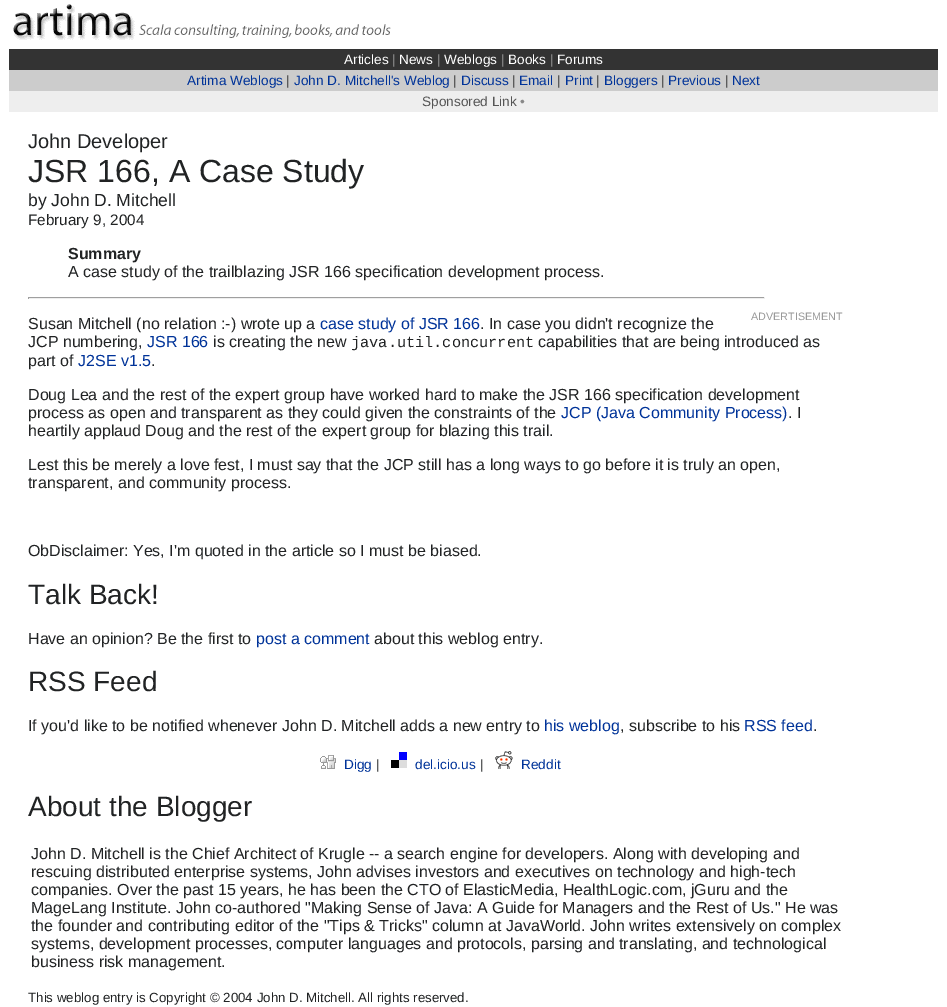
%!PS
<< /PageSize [947 1007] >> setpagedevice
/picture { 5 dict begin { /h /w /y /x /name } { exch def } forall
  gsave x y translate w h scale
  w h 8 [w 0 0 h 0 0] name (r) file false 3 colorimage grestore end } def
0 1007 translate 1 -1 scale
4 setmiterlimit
1 setgray
0 0 947 1007 rectfill
(img1.rgb) 13 4 378 36 picture
0.2 setgray
9 49 929 21 rectfill
/LiberationSans-Regular [13.6 0 0 -13.6 0 0] selectfont
1 setgray
344 64 moveto (Articles) show
0.6 setgray
392 64 moveto (|) show
1 setgray
399 64 moveto (News) show
0.6 setgray
437 64 moveto (|) show
1 setgray
444 64 moveto (Weblogs) show
0.6 setgray
501 64 moveto (|) show
1 setgray
508 64 moveto (Books) show
0.6 setgray
550 64 moveto (|) show
1 setgray
557 64 moveto (Forums) show
0.8 setgray
9 70 929 21 rectfill
0 0.2 0.6 setrgbcolor
187 85 moveto (Artima Weblogs) show
0.2 setgray
286 85 moveto (|) show
0 0.2 0.6 setrgbcolor
294 85 moveto (John D. Mitchell's Weblog) show
0.2 setgray
453 85 moveto (|) show
0 0.2 0.6 setrgbcolor
461 85 moveto (Discuss) show
0.2 setgray
512 85 moveto (|) show
0 0.2 0.6 setrgbcolor
519 85 moveto (Email) show
0.2 setgray
557 85 moveto (|) show
0 0.2 0.6 setrgbcolor
565 85 moveto (Print) show
0.2 setgray
596 85 moveto (|) show
0 0.2 0.6 setrgbcolor
604 85 moveto (Bloggers) show
0.2 setgray
661 85 moveto (|) show
0 0.2 0.6 setrgbcolor
668 85 moveto (Previous) show
0.2 setgray
725 85 moveto (|) show
0 0.2 0.6 setrgbcolor
732 85 moveto (Next) show
0.933 setgray
9 91 929 21 rectfill
0.333 setgray
422 106 moveto (Sponsored Link) show
0.533 setgray
520 106 moveto (•) show
/LiberationSans-Regular [20 0 0 -20 0 0] selectfont
0.129 0.137 0.141 setrgbcolor
28 148 moveto (John Developer) show
/LiberationSans-Regular [32 0 0 -32 0 0] selectfont
28 182 moveto (JSR 166, A Case Study) show
/LiberationSans-Regular [17.5 0 0 -17.5 0 0] selectfont
28 206 moveto (by John D. Mitchell) show
/LiberationSans-Regular [15.25 0 0 -15.25 0 0] selectfont
28 225 moveto (February 9, 2004) show
/LiberationSans-Bold [16 0 0 -16 0 0] selectfont
68 259 moveto (Summary) show
/LiberationSans-Regular [16 0 0 -16 0 0] selectfont
68 277 moveto (A case study of the trailblazing JSR 166 specification development process.) show
0.624 setgray
28 297 737 1 rectfill
0.933 setgray
764 297 1 2 rectfill
28 298 737 1 rectfill
0.624 setgray
28 297 1 2 rectfill
/LiberationSans-Regular [10.75 0 0 -10.75 0 0] selectfont
0.6 setgray
751 320 moveto (ADVERTISEMENT) show
/LiberationSans-Regular [16 0 0 -16 0 0] selectfont
0.129 0.137 0.141 setrgbcolor
28 329 moveto (Susan Mitchell \(no relation :-\) wrote up a) show
0 0.2 0.6 setrgbcolor
320 329 moveto (case study of JSR 166) show
0.129 0.137 0.141 setrgbcolor
480 329 moveto (. In case you didn't recognize the) show
28 347 moveto (JCP numbering,) show
0 0.2 0.6 setrgbcolor
147 347 moveto (JSR 166) show
0.129 0.137 0.141 setrgbcolor
213 347 moveto (is creating the new) show
/LiberationMono-Regular [15.25 0 0 -15.25 0 0] selectfont
351 347 moveto (java.util.concurrent) show
/LiberationSans-Regular [16 0 0 -16 0 0] selectfont
538 347 moveto (capabilities that are being introduced as) show
28 366 moveto (part of) show
0 0.2 0.6 setrgbcolor
78 366 moveto (J2SE v1.5) show
0.129 0.137 0.141 setrgbcolor
151 366 moveto (.) show
28 400 moveto (Doug Lea and the rest of the expert group have worked hard to make the JSR 166 specification development) show
28 418 moveto (process as open and transparent as they could given the constraints of the) show
0 0.2 0.6 setrgbcolor
561 418 moveto (JCP \(Java Community Process\)) show
0.129 0.137 0.141 setrgbcolor
788 418 moveto (. I) show
28 436 moveto (heartily applaud Doug and the rest of the expert group for blazing this trail.) show
28 470 moveto (Lest this be merely a love fest, I must say that the JCP still has a long ways to go before it is truly an open,) show
28 488 moveto (transparent, and community process.) show
28 556 moveto (ObDisclaimer: Yes, I'm quoted in the article so I must be biased.) show
/LiberationSans-Regular [28 0 0 -28 0 0] selectfont
28 604 moveto (Talk Back!) show
/LiberationSans-Regular [16 0 0 -16 0 0] selectfont
28 644 moveto (Have an opinion? Be the first to) show
0 0.2 0.6 setrgbcolor
256 644 moveto (post a comment) show
0.129 0.137 0.141 setrgbcolor
374 644 moveto (about this weblog entry.) show
/LiberationSans-Regular [28 0 0 -28 0 0] selectfont
28 691 moveto (RSS Feed) show
/LiberationSans-Regular [16 0 0 -16 0 0] selectfont
28 731 moveto (If you'd like to be notified whenever John D. Mitchell adds a new entry to) show
0 0.2 0.6 setrgbcolor
544 731 moveto (his weblog) show
0.129 0.137 0.141 setrgbcolor
620 731 moveto (, subscribe to his) show
0 0.2 0.6 setrgbcolor
744 731 moveto (RSS feed) show
0.129 0.137 0.141 setrgbcolor
813 731 moveto (.) show
(img2.rgb) 320 755 16 14 picture
/LiberationSans-Regular [13.6 0 0 -13.6 0 0] selectfont
0 0.2 0.6 setrgbcolor
344 769 moveto (Digg) show
0.129 0.137 0.141 setrgbcolor
376 769 moveto (|) show
(img3.rgb) 391 752 16 16 picture
0 0.2 0.6 setrgbcolor
415 769 moveto (del.icio.us) show
0.129 0.137 0.141 setrgbcolor
480 769 moveto (|) show
(img4.rgb) 495 751 18 18 picture
0 0.2 0.6 setrgbcolor
521 769 moveto (Reddit) show
/LiberationSans-Regular [28 0 0 -28 0 0] selectfont
0.129 0.137 0.141 setrgbcolor
28 816 moveto (About the Blogger) show
/LiberationSans-Regular [16 0 0 -16 0 0] selectfont
31 859 moveto (John D. Mitchell is the Chief Architect of Krugle -- a search engine for developers. Along with developing and) show
31 877 moveto (rescuing distributed enterprise systems, John advises investors and executives on technology and high-tech) show
31 895 moveto (companies. Over the past 15 years, he has been the CTO of ElasticMedia, HealthLogic.com, jGuru and the) show
31 913 moveto (MageLang Institute. John co-authored "Making Sense of Java: A Guide for Managers and the Rest of Us." He was) show
31 931 moveto (the founder and contributing editor of the "Tips & Tricks" column at JavaWorld. John writes extensively on complex) show
31 949 moveto (systems, development processes, computer languages and protocols, parsing and translating, and technological) show
31 967 moveto (business risk management.) show
/LiberationSans-Regular [13.3 0 0 -13.3 0 0] selectfont
28 1002 moveto (This weblog entry is Copyright © 2004 John D. Mitchell. All rights reserved.) show
showpage
